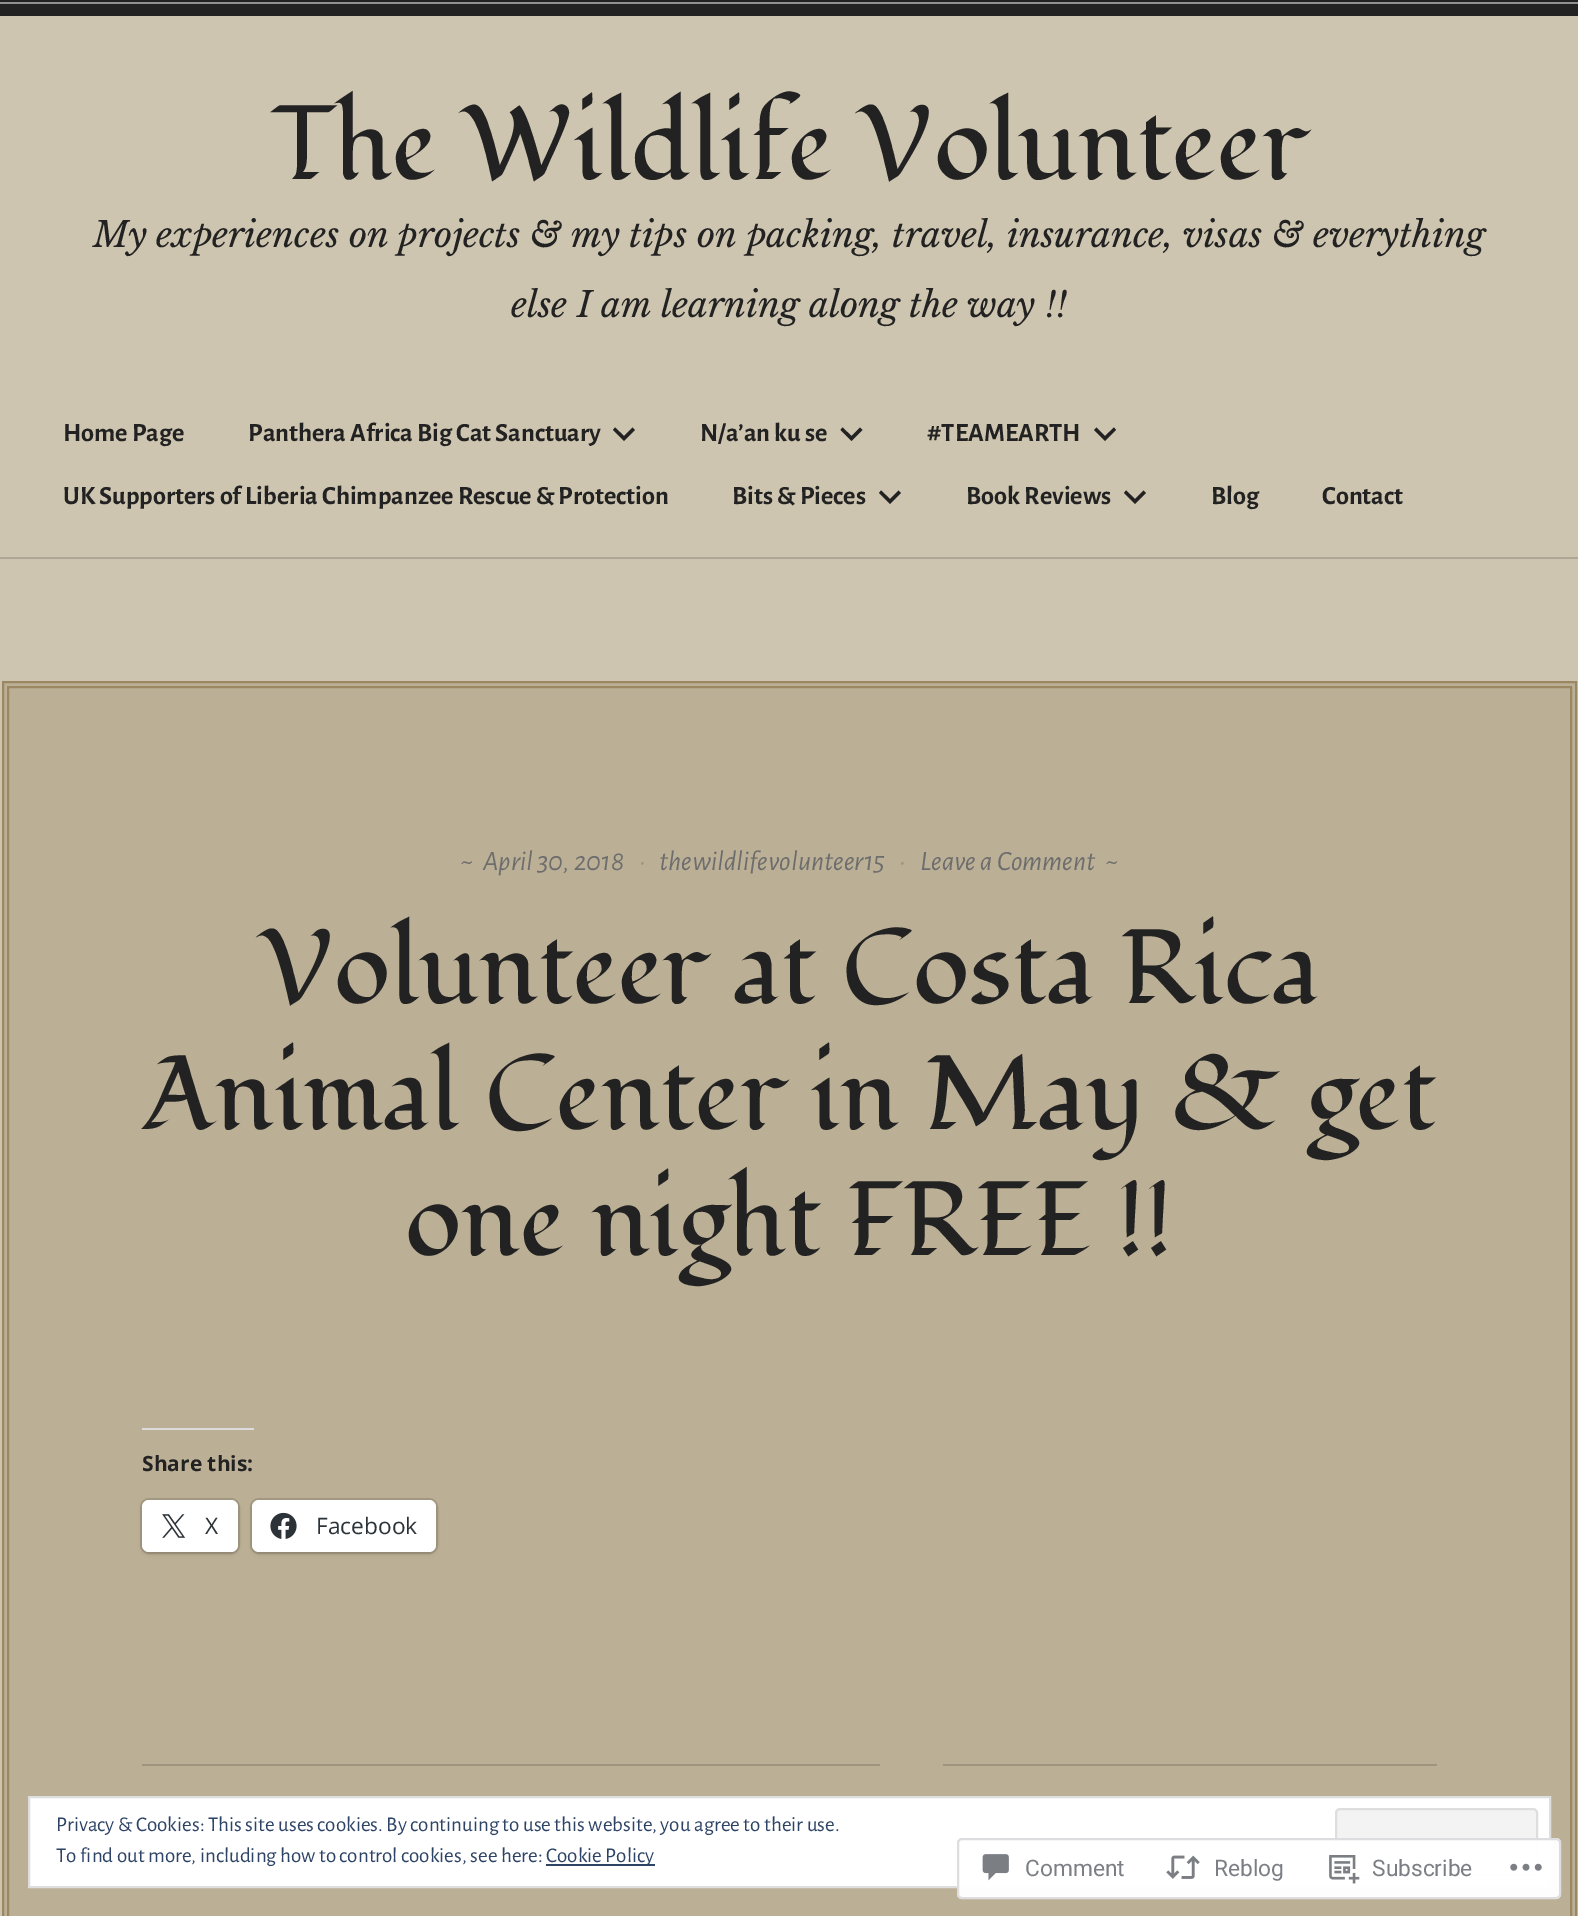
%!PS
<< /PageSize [1578 1916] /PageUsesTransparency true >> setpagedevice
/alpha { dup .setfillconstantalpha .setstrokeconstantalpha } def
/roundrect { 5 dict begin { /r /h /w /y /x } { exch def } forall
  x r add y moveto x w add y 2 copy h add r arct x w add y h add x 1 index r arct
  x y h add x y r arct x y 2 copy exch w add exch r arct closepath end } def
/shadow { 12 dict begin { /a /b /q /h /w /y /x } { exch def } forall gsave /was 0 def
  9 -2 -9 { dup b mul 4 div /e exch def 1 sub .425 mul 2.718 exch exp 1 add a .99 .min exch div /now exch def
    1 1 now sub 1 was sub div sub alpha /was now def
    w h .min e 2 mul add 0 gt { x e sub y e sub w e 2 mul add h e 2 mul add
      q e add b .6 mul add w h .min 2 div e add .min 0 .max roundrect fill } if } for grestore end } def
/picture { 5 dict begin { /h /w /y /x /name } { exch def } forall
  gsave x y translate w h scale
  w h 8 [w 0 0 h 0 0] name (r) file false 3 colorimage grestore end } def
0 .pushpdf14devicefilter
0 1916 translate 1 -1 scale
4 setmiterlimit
0.808 0.773 0.69 setrgbcolor
0 0 1578 1916 rectfill
0.133 setgray
0 0 1578 16 rectfill
0.686 0.655 0.588 setrgbcolor
0 557 1578 2 rectfill
0.569 setgray
0 2 1578 2 rectfill
/Fondamento-Regular [105 0 0 -105 0 0] selectfont
0.133 setgray
271 179 moveto (The Wildlife Volunteer) show
/LibreBaskerville-Italic [35 0 0 -35 0 0] selectfont
93 247 moveto (My experiences on projects & my tips on packing, travel, insurance, visas & everything) show
511 317 moveto (else I am learning along the way !!) show
/AlegreyaSans-Bold [26.25 0 0 -26.25 0 0] selectfont
63 441 moveto (Home Page) show
248 441 moveto (Panthera Africa Big Cat Sanctuary) show
newpath 624 441 moveto 613 430 lineto 615 427.5 lineto 624 436 lineto 632.5 427.5 lineto 635 430 lineto closepath fill
700 441 moveto (N/a’an ku se) show
newpath 851.5 441 moveto 840.5 430 lineto 842.5 427.5 lineto 851.5 436 lineto 860 427.5 lineto 862.5 430 lineto closepath fill
927 441 moveto (#TEAMEARTH) show
newpath 1105 441 moveto 1094 430 lineto 1096.5 427.5 lineto 1105 436 lineto 1114 427.5 lineto 1116 430 lineto closepath fill
63 504 moveto (UK Supporters of Liberia Chimpanzee Rescue & Protection) show
732 504 moveto (Bits & Pieces) show
newpath 890 504 moveto 879 493 lineto 881 490.5 lineto 890 499 lineto 898.5 490.5 lineto 901 493 lineto closepath fill
966 504 moveto (Book Reviews) show
newpath 1135 504 moveto 1124 493 lineto 1126 490.5 lineto 1135 499 lineto 1143.5 490.5 lineto 1146 493 lineto closepath fill
1211 504 moveto (Blog) show
1322 504 moveto (Contact) show
0.733 0.686 0.584 setrgbcolor
newpath 3 682 moveto 1576 682 lineto 1576 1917 lineto 3 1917 lineto closepath gsave fill grestore
0.608 0.533 0.388 setrgbcolor
2 setlinewidth
stroke
8 687 1563 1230 rectstroke
/AlegreyaSans-Italic [28 0 0 -28 0 0] selectfont
0.427 setgray
460 870 moveto (~) show
483 870 moveto (April 30, 2018) show
0.624 0.584 0.498 setrgbcolor
639 870 moveto (•) show
0.427 setgray
659 870 moveto (thewildlifevolunteer15) show
0.624 0.584 0.498 setrgbcolor
899 870 moveto (•) show
0.427 setgray
920 870 moveto (Leave a Comment) show
1105 870 moveto (~) show
/Fondamento-Regular [105 0 0 -105 0 0] selectfont
0.133 setgray
259 1003 moveto (Volunteer at Costa Rica) show
143 1129 moveto (Animal Center in May & get) show
405 1255 moveto (one night FREE !!) show
0.863 0.863 0.871 setrgbcolor
142 1428 112 2 rectfill
/OpenSans-Bold [21 0 0 -21 0 0] selectfont
0.133 setgray
142 1471 moveto (Share this:) show
0.647 0.604 0.514 setrgbcolor
141 1499 98 54 8 roundrect stroke
0 setgray
142 1502 96 52 7 2 0.12 shadow
1 setgray
142 1500 96 52 7 roundrect fill
(img1.rgb) 162 1514 24 24 picture
/OpenSans-Regular [22.75 0 0 -22.75 0 0] selectfont
0.173 0.2 0.22 setrgbcolor
205 1534 moveto (X) show
0.647 0.604 0.514 setrgbcolor
251 1499 186 54 8 roundrect stroke
0 setgray
252 1502 184 52 7 2 0.12 shadow
1 setgray
252 1500 184 52 7 roundrect fill
(img2.rgb) 270 1512 27 27 picture
0.173 0.2 0.22 setrgbcolor
316 1534 moveto (Facebook) show
0.624 0.584 0.498 setrgbcolor
142 1764 738 2 rectfill
943 1764 494 2 rectfill
1 setgray
newpath 29 1797 moveto 1550 1797 lineto 1550 1887 lineto 29 1887 lineto closepath gsave fill grestore
0.871 setgray
stroke
/AlegreyaSans-Regular [21 0 0 -21 0 0] selectfont
0.18 0.267 0.404 setrgbcolor
56 1831 moveto (Privacy & Cookies: This site uses cookies. By continuing to use this website, you agree to their use.) show
0.953 setgray
1336 1809 201 66 4 roundrect gsave fill grestore
0.871 setgray
stroke
0.18 0.267 0.404 setrgbcolor
56 1862 moveto (To find out more, including how to control cookies, see here:) show
546 1864 109 2 rectfill
546 1862 moveto (Cookie Policy) show
0.98 alpha
1 setgray
957 1838 604 61 5 roundrect fill
0.863 0.863 0.871 setrgbcolor
958 1839 602 59 4 roundrect stroke
1 alpha
(img3.rgb) 982 1854 27 27 picture
/Roboto-Regular [22.75 0 0 -22.75 0 0] selectfont
0.482 0.498 0.522 setrgbcolor
1025 1876 moveto (Comment) show
(img4.rgb) 1166 1855 34 24 picture
1214 1876 moveto (Reblog) show
(img5.rgb) 1329 1855 31 29 picture
1372 1876 moveto (Subscribe) show
(img6.rgb) 1510 1863 32 8 picture
.poppdf14devicefilter showpage
